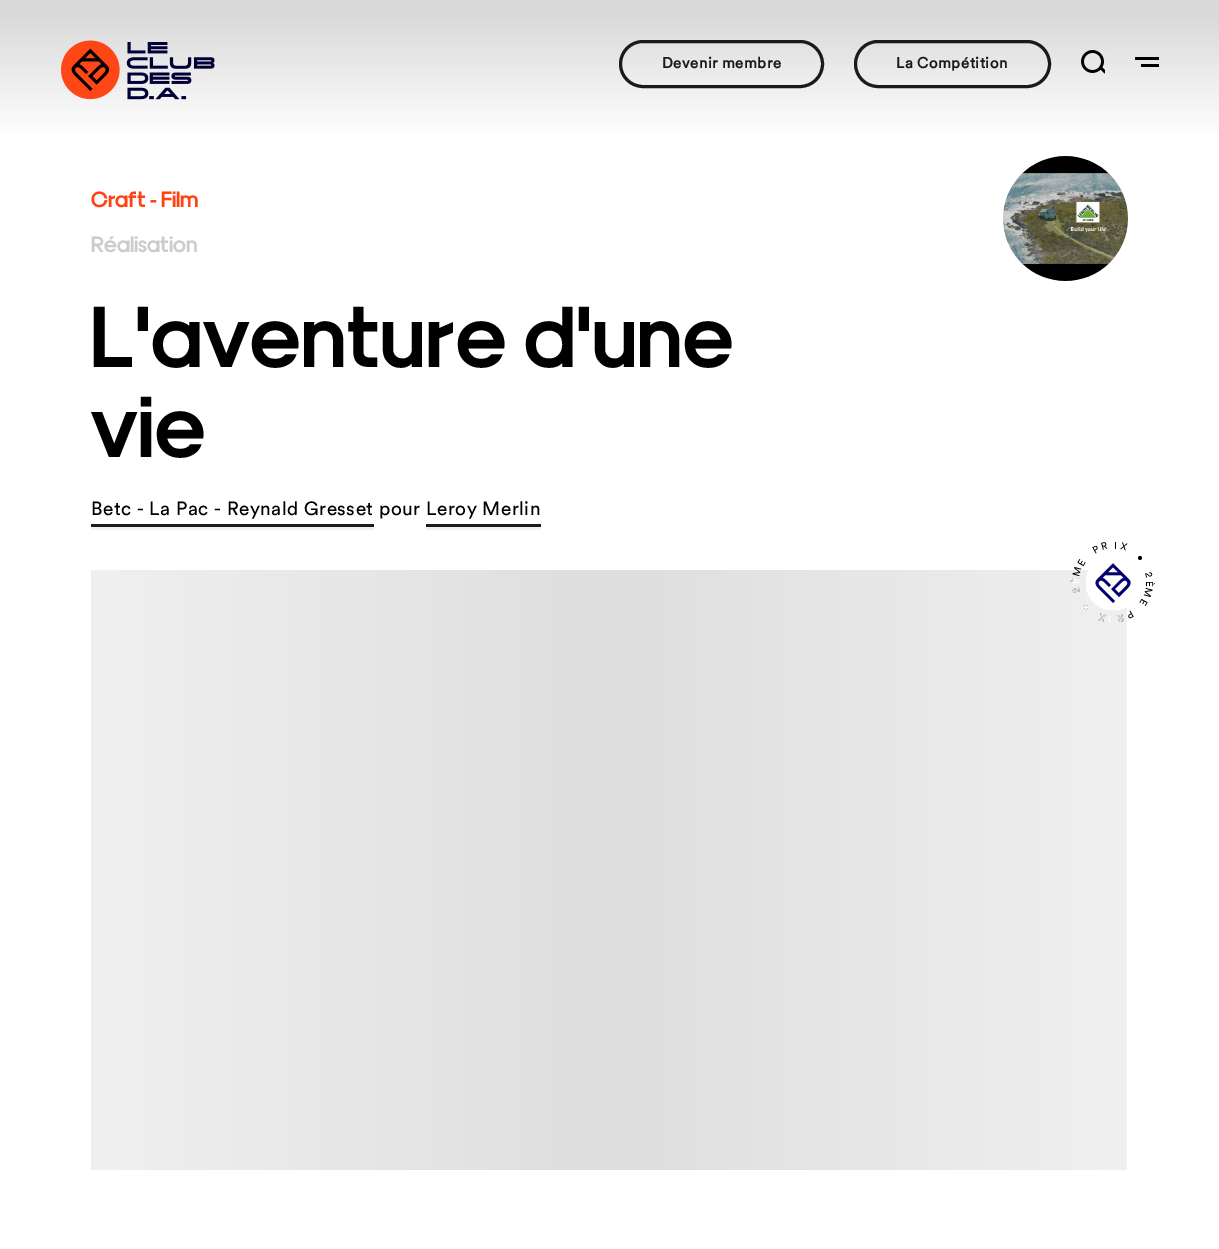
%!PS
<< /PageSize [1219 1249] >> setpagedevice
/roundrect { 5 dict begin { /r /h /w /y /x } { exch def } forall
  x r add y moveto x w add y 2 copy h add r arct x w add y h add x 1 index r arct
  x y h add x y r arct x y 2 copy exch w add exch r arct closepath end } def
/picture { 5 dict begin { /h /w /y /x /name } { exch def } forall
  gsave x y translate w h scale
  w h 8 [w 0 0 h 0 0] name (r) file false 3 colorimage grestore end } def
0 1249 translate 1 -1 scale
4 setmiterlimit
1 setgray
0 0 1219 1249 rectfill
gsave newpath 0 0 moveto 1219 0 lineto 1219 132 lineto 0 132 lineto closepath clip newpath
<< /ShadingType 2 /ColorSpace /DeviceRGB /Coords [610 140 610 0] /Extend [true true] /Function << /FunctionType 3 /Domain [0 1] /Functions [<< /FunctionType 2 /Domain [0 1] /C0 [1 1 1] /C1 [0.851 0.851 0.851] /N 1 >> << /FunctionType 2 /Domain [0 1] /C0 [0.851 0.851 0.851] /C1 [0.851 0.851 0.851] /N 1 >>] /Bounds [0.9] /Encode [0 1 0 1] >> >> shfill grestore
(img1.rgb) 61 40 154 60 picture
0.102 setgray
3 setlinewidth
620.5 41.5 202 45 22.5 roundrect stroke
/Circular-Bold [15 0 0 -15 0 0] selectfont
662 68 moveto 0.5 0 (Devenir membre) ashow
855.5 41.5 194 45 22.5 roundrect stroke
896 68 moveto 0.5 0 (La Compétition) ashow
(img2.rgb) 1081 50 24 24 picture
0 setgray
1135 57 24 3 rectfill
1141 64 18 3 rectfill
/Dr-Bold [23 0 0 -23 0 0] selectfont
1 0.263 0.078 setrgbcolor
91 207 moveto (Craft - Film) show
0.8 setgray
91 252 moveto (Réalisation) show
(img3.rgb) 1003 156 125 125 picture
/Dr-Bold [90 0 0 -90 0 0] selectfont
0 setgray
91 367 moveto 0.5 0 (L'aventure d'une) ashow
91 457 moveto 0.5 0 (vie) ashow
/Circular-Regular [19 0 0 -19 0 0] selectfont
91 515 moveto 0.5 0 (Betc - La Pac - Reynald Gresset) ashow
0.102 setgray
91 524 283 3 rectfill
0.941 setgray
91 527 283 3 rectfill
0 setgray
379 515 moveto 0.5 0 (pour Leroy Merlin) ashow
0.102 setgray
426 524 115 3 rectfill
0.941 setgray
426 527 115 3 rectfill
/Circular-Regular [10 0 0 -10 0 0] selectfont
0 setgray
gsave 1095 554 translate -30 rotate 0 0 moveto (P) show grestore
gsave 1102 550 translate -15 rotate 0 0 moveto (R) show grestore
1114 549 moveto (I) show
gsave 1120 549 translate 15 rotate 0 0 moveto (X) show grestore
gsave 1136 558 translate 45 rotate 0 0 moveto (•) show grestore
gsave 1083 567 translate -60 rotate 0 0 moveto (E) show grestore
gsave newpath 91 570 moveto 1127 570 lineto 1127 1170 lineto 91 1170 lineto closepath clip newpath
<< /ShadingType 2 /ColorSpace /DeviceRGB /Coords [91 570 1127 570] /Extend [true true] /Function << /FunctionType 3 /Domain [0 1] /Functions [<< /FunctionType 2 /Domain [0 1] /C0 [0.941 0.941 0.941] /C1 [0.871 0.871 0.871] /N 1 >> << /FunctionType 2 /Domain [0 1] /C0 [0.871 0.871 0.871] /C1 [0.941 0.941 0.941] /N 1 >>] /Bounds [0.5] /Encode [0 1 0 1] >> >> shfill grestore
gsave 1079 577 translate -75 rotate 0 0 moveto (M) show grestore
gsave 1145 573 translate 75 rotate 0 0 moveto (2) show grestore
gsave 1079 584 translate -90 rotate 0 0 moveto (È) show grestore
gsave 1146 581 translate 90 rotate 0 0 moveto (È) show grestore
gsave 1080 592 translate -105 rotate 0 0 moveto (2) show grestore
gsave 1146 587 translate 105 rotate 0 0 moveto (M) show grestore
gsave 1142 598 translate 120 rotate 0 0 moveto (E) show grestore
(img4.rgb) 1086 563 45 47 picture
gsave 1090 607 translate -135 rotate 0 0 moveto (•) show grestore
gsave 1106 615 translate -165 rotate 0 0 moveto (X) show grestore
gsave 1111 616 translate 180 rotate 0 0 moveto (I) show grestore
gsave 1123 614 translate 165 rotate 0 0 moveto (R) show grestore
gsave 1131 610 translate 150 rotate 0 0 moveto (P) show grestore
1 setgray
gsave 1079 584 translate -90 rotate 0 0 moveto (È) show grestore
gsave 1080 592 translate -105 rotate 0 0 moveto (2) show grestore
gsave 1090 607 translate -135 rotate 0 0 moveto (•) show grestore
gsave 1106 615 translate -165 rotate 0 0 moveto (X) show grestore
gsave 1111 616 translate 180 rotate 0 0 moveto (I) show grestore
gsave 1123 614 translate 165 rotate 0 0 moveto (R) show grestore
showpage
